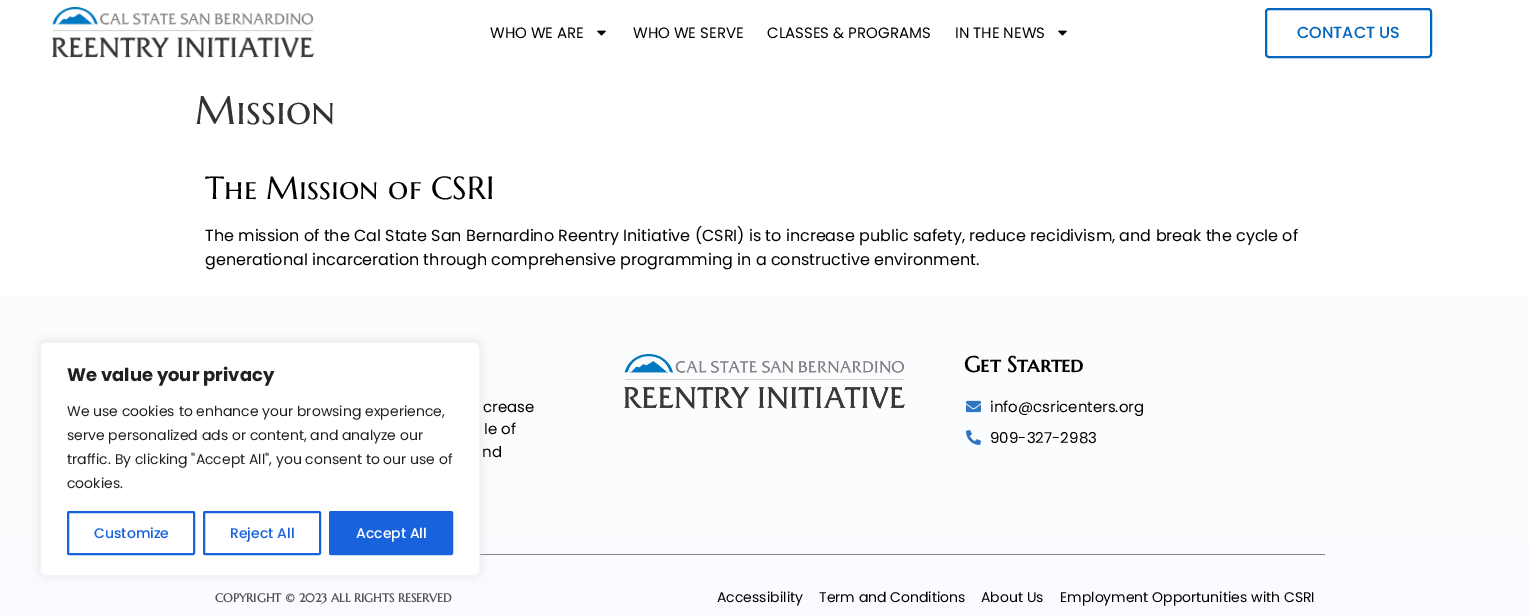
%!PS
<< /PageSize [1529 616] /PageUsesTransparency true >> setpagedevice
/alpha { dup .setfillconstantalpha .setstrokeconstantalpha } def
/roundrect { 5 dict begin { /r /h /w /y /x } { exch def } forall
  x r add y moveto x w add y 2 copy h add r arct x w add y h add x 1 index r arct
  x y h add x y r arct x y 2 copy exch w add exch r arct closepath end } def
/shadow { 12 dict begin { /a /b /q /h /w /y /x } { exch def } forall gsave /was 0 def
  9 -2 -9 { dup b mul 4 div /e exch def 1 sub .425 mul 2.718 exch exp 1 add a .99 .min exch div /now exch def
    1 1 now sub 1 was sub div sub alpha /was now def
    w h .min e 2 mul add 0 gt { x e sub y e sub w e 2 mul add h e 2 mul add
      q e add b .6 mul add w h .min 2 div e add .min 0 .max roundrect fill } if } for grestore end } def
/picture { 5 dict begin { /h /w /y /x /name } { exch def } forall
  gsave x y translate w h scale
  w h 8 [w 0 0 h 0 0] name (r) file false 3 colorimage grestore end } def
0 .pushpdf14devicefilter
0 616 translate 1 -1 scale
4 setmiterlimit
1 setgray
0 0 1529 616 rectfill
(img1.rgb) 52 7 262 51 picture
/Poppins-Regular [15 0 0 -15 0 0] selectfont
0 setgray
490 38 moveto (WHO WE ARE) show
(img2.rgb) 597 30 9 6 picture
633 38 moveto (WHO WE SERVE) show
767 38 moveto (CLASSES & PROGRAMS) show
955 38 moveto (IN THE NEWS) show
(img2.rgb) 1058 30 9 6 picture
0 0.396 0.741 setrgbcolor
2 setlinewidth
1266 9 165 48 3 roundrect stroke
/Poppins-Medium [16 0 0 -16 0 0] selectfont
1297 38 moveto (CONTACT US) show
/MarcellusSC-Regular [40 0 0 -40 0 0] selectfont
0.2 setgray
195 124 moveto (Mission) show
/MarcellusSC-Regular [32 0 0 -32 0 0] selectfont
0 setgray
205 199 moveto (The Mission of CSRI) show
/Poppins-Regular [16 0 0 -16 0 0] selectfont
205 241 moveto (The mission of the Cal State San Bernardino Reentry Initiative \(CSRI\) is to increase public safety, reduce recidivism, and break the cycle of) show
205 265 moveto (generational incarceration through comprehensive programming in a constructive environment.) show
0.98 0.988 0.996 setrgbcolor
0 296 1529 246 rectfill
/Poppins-Regular [15 0 0 -15 0 0] selectfont
0 setgray
483 412 moveto (crease) show
484 434 moveto (le of) show
482 457 moveto (nd) show
(img3.rgb) 624 354 281 55 picture
/MarcellusSC-Bold [22 0 0 -22 0 0] selectfont
964 372 moveto (Get Started) show
(img4.rgb) 966 400 15 13 picture
/Poppins-Regular [15 0 0 -15 0 0] selectfont
990 412 moveto (info@csricenters.org) show
(img5.rgb) 966 430 15 15 picture
990 443 moveto (909-327-2983) show
0.976 0.984 0.996 setrgbcolor
0 542 1529 74 rectfill
0.537 0.533 0.533 setrgbcolor
480 554 845 1 rectfill
/MarcellusSC-Bold [12 0 0 -12 0 0] selectfont
0.325 setgray
215 602 moveto (COPYRIGHT © 2023 ALL RIGHTS RESERVED) show
/Poppins-Regular [14 0 0 -14 0 0] selectfont
0 setgray
717 602 moveto (Accessibility) show
819 602 moveto (Term and Conditions) show
981 602 moveto (About Us) show
1060 602 moveto (Employment Opportunities with CSRI) show
0.675 0.671 0.671 setrgbcolor
40 341 440 234 6 5 0.3 shadow
1 setgray
40.5 342.5 439 233 5.5 roundrect gsave fill grestore
0.957 setgray
1 setlinewidth
stroke
/Poppins-Bold [18 0 0 -18 0 0] selectfont
0.129 setgray
67 381 moveto (We value your privacy) show
/Poppins-Regular [14 0 0 -14 0 0] selectfont
67 416 moveto (We use cookies to enhance your browsing experience,) show
67 440 moveto (serve personalized ads or content, and analyze our) show
67 464 moveto (traffic. By clicking "Accept All", you consent to our use of) show
67 488 moveto (cookies.) show
0.094 0.388 0.863 setrgbcolor
2 setlinewidth
68 512 126 42 1 roundrect stroke
/Poppins-Medium [14 0 0 -14 0 0] selectfont
94 538 moveto (Customize) show
204 512 116 42 1 roundrect stroke
230 538 moveto (Reject All) show
330 512 122 42 1 roundrect gsave fill grestore
stroke
1 setgray
356 538 moveto (Accept All) show
.poppdf14devicefilter showpage
